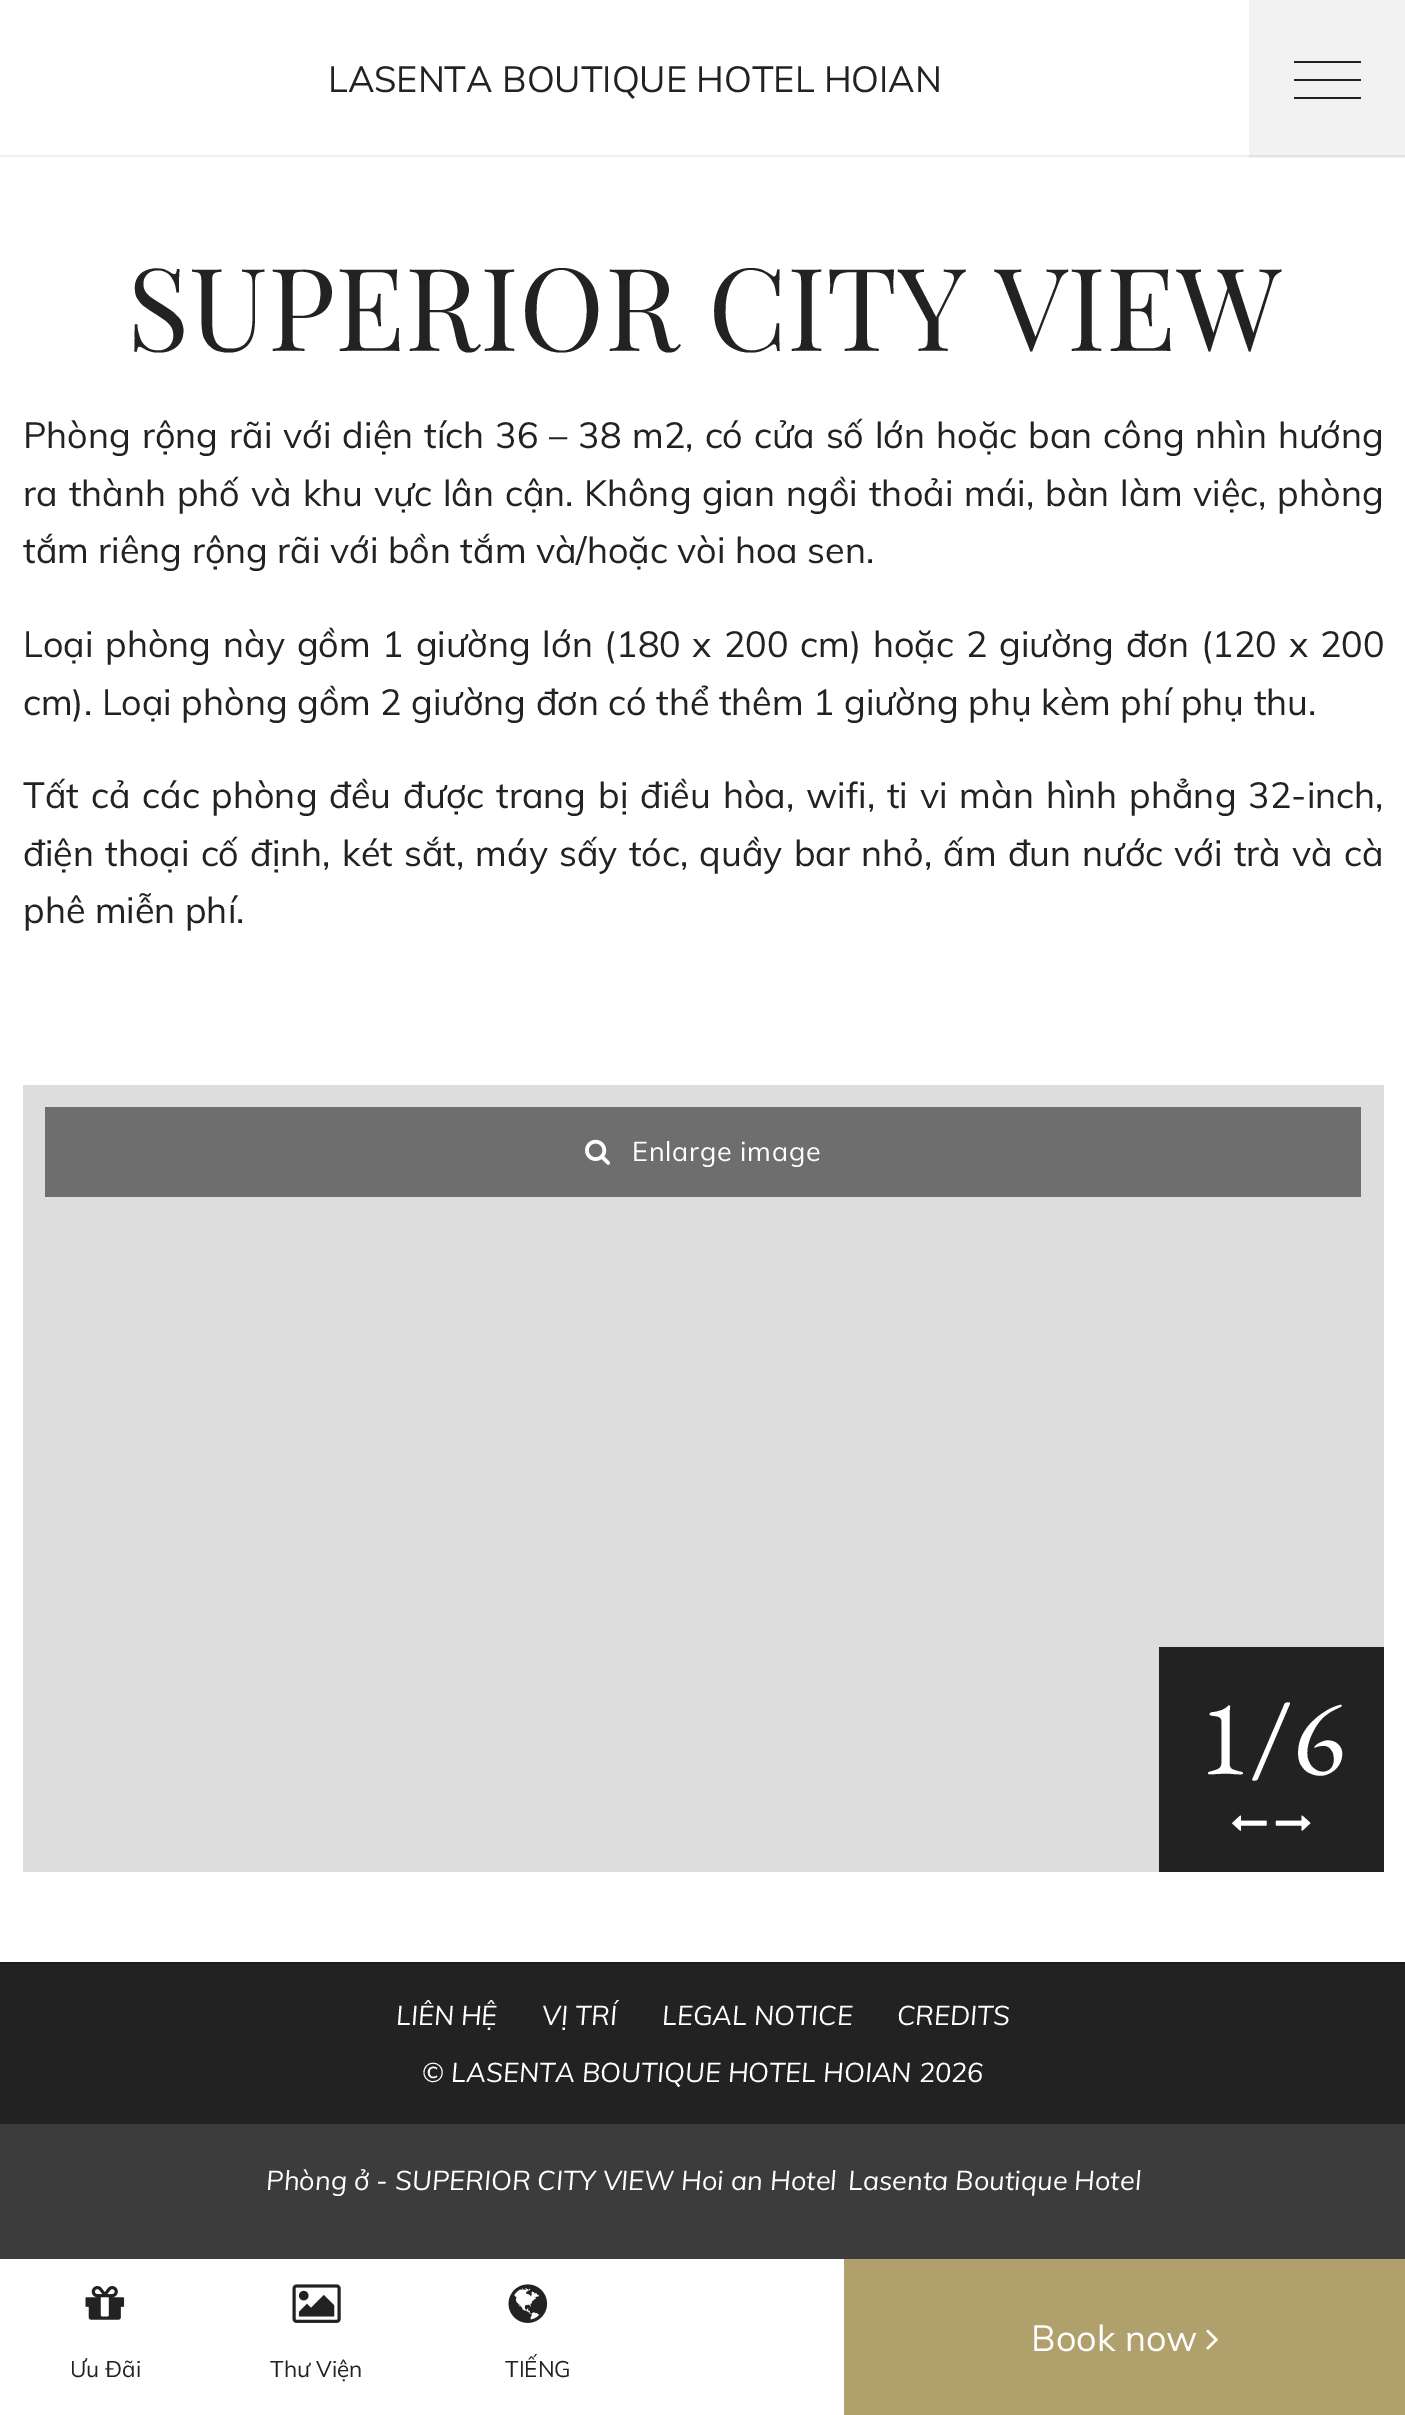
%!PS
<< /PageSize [1405 2415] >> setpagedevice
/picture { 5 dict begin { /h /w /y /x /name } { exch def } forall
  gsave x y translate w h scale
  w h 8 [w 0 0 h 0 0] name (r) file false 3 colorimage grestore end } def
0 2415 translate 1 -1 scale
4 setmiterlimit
1 setgray
0 0 1405 2415 rectfill
0.949 setgray
1249 0 156 158 rectfill
0.937 setgray
0 155 1249 2 rectfill
0.89 setgray
1249 155 156 2 rectfill
/Muli-Regular [36 0 0 -36 0 0] selectfont
0.133 setgray
328 92 moveto (LASENTA BOUTIQUE HOTEL HOIAN) show
1294 79 67 2 rectfill
1294 61 67 2 rectfill
1294 97 67 2 rectfill
/PlayfairDisplay-Regular [115.25 0 0 -115.25 0 0] selectfont
127 351 moveto (SUPERIOR CITY VIEW) show
/Muli-Regular [36 0 0 -36 0 0] selectfont
23 448 moveto 1.5 0 32 (Phòng rộng rãi với diện tích 36 – 38 m2, có cửa số lớn hoặc ban công nhìn hướng) widthshow
23 506 moveto 1.5 0 32 (ra thành phố và khu vực lân cận.) widthshow
584 506 moveto 1.5 0 32 (Không gian ngồi thoải mái, bàn làm việc, phòng) widthshow
23 563 moveto (tắm riêng rộng rãi với bồn tắm và/hoặc vòi hoa sen.) show
23 657 moveto 2.4 0 32 (Loại phòng này gồm 1 giường lớn \(180 x 200 cm\) hoặc 2 giường đơn \(120 x 200) widthshow
23 715 moveto (cm\). Loại phòng gồm 2 giường đơn có thể thêm 1 giường phụ kèm phí phụ thu.) show
23 808 moveto 2.5 0 32 (Tất cả các phòng đều được trang bị điều hòa, wifi, ti vi màn hình phẳng 32-inch,) widthshow
23 866 moveto 1.8 0 32 (điện thoại cố định, két sắt, máy sấy tóc, quầy bar nhỏ, ấm đun nước với trà và cà) widthshow
23 923 moveto (phê miễn phí.) show
0.867 setgray
23 1085 1361 787 rectfill
0.431 setgray
45 1107 1316 90 rectfill
(img1.rgb) 585 1139 25 26 picture
/Muli-Regular [27 0 0 -27 0 0] selectfont
1 setgray
632 1161 moveto 0.75 0 (Enlarge image) ashow
0.133 setgray
1159 1647 225 225 rectfill
/EBGaramond-Regular [108 0 0 -108 0 0] selectfont
1 setgray
1198 1774 moveto (1/6) show
(img2.rgb) 1232 1815 35 16 picture
(img3.rgb) 1275 1815 36 16 picture
0.235 setgray
0 2124 1405 135 rectfill
0.133 setgray
0 1964 1405 160 rectfill
0.102 setgray
0 1962 1405 2 rectfill
/Muli-Italic [27 0 0 -27 0 0] selectfont
1 setgray
396 2025 moveto (LIÊN HỆ) show
542 2025 moveto (VỊ TRÍ) show
662 2025 moveto (LEGAL NOTICE) show
897 2025 moveto (CREDITS) show
422 2082 moveto (© LASENTA BOUTIQUE HOTEL HOIAN 2026) show
266 2190 moveto (Phòng ở - SUPERIOR CITY VIEW Hoi an Hotel) show
848 2190 moveto (Lasenta Boutique Hotel) show
0.69 0.627 0.424 setrgbcolor
844 2259 561 156 rectfill
/Muli-Regular [36 0 0 -36 0 0] selectfont
1 setgray
1031 2351 moveto (Book now) show
(img4.rgb) 1206 2329 12 21 picture
(img5.rgb) 85 2286 40 34 picture
/Muli-Regular [22.5 0 0 -22.5 0 0] selectfont
0.133 setgray
70 2377 moveto (Ưu Đãi) show
(img6.rgb) 292 2284 49 39 picture
270 2377 moveto (Thư Viện) show
(img7.rgb) 508 2284 40 39 picture
505 2377 moveto (TIẾNG) show
showpage
